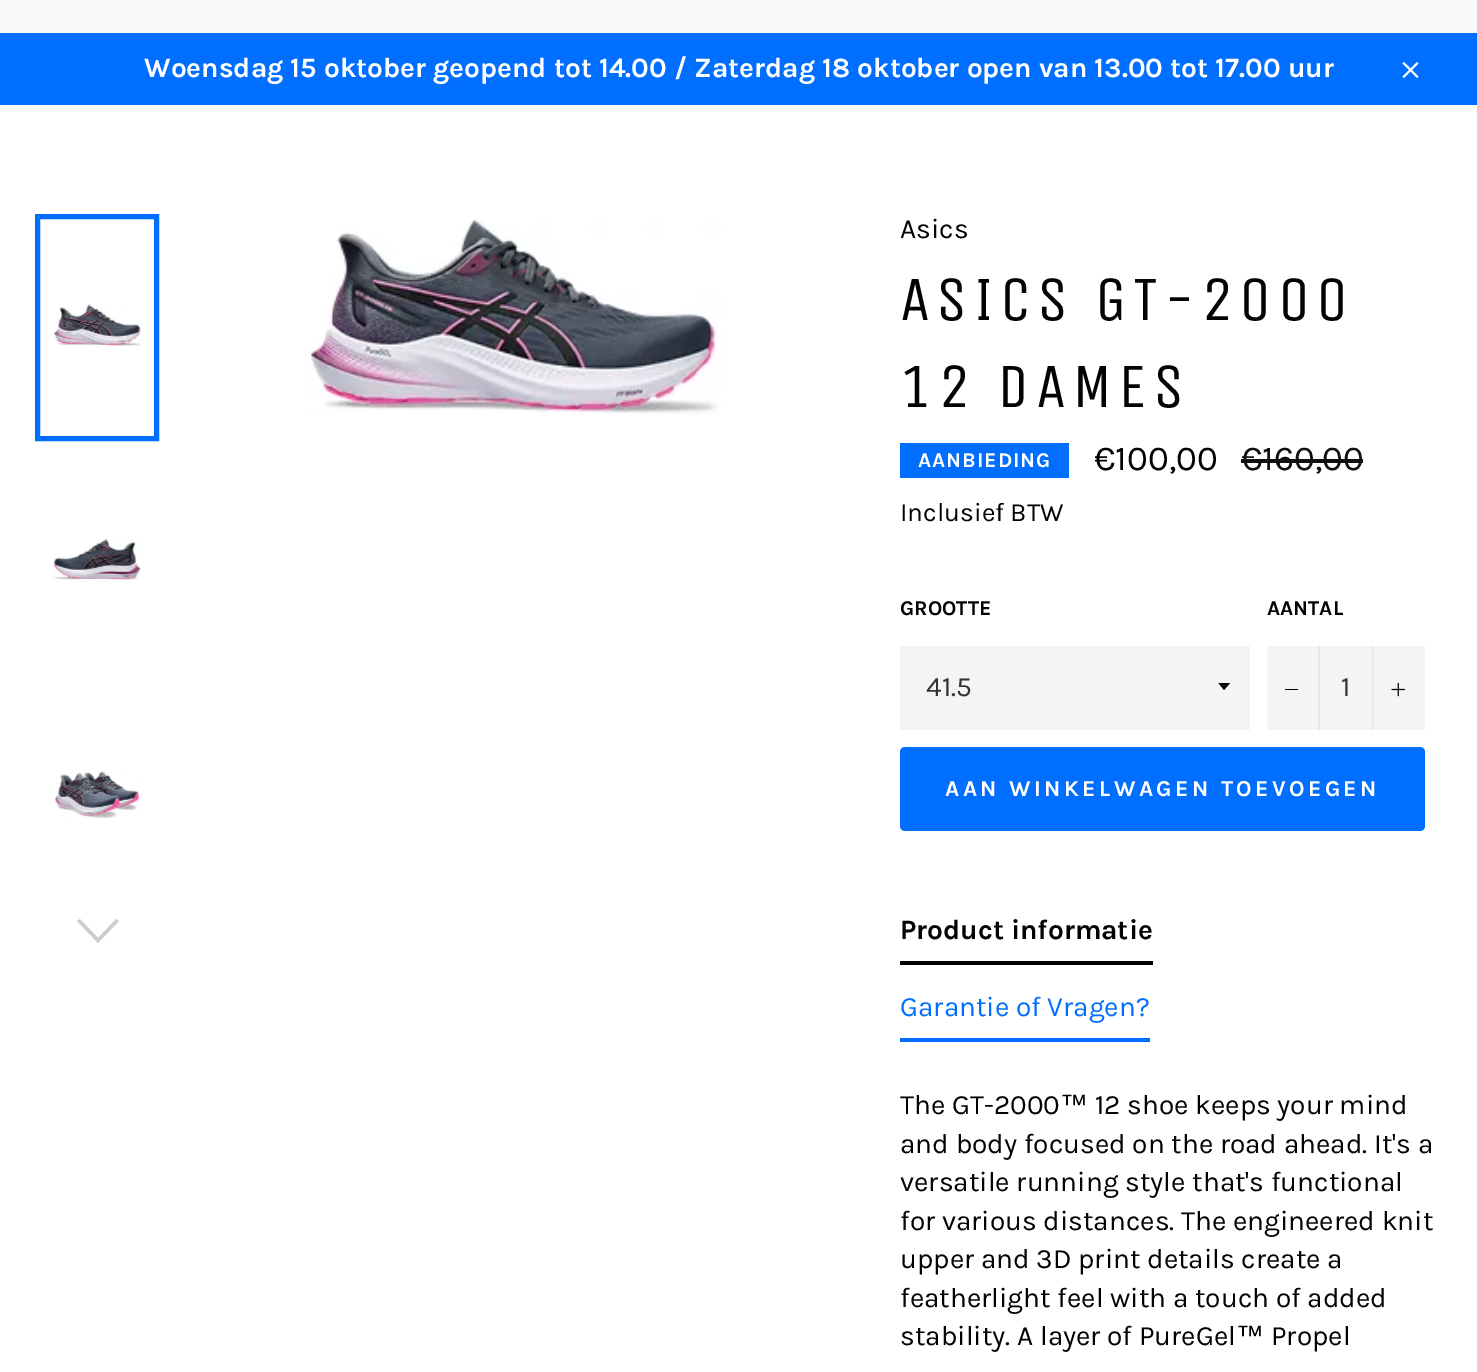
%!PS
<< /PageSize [1477 1372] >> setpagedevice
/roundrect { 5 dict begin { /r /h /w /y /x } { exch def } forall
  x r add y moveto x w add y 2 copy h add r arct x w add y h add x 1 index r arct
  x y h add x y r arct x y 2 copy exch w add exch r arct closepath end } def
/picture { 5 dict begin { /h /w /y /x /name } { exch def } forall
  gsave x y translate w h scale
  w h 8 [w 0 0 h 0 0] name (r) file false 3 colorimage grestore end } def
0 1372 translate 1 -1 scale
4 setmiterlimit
1 setgray
0 0 1477 1372 rectfill
0.976 setgray
0 0 1477 33 rectfill
0 0.431 1 setrgbcolor
0 33 1477 72 rectfill
/Karla-Bold [28 0 0 -28 0 0] selectfont
1 setgray
144 77 moveto (Woensdag 15 oktober geopend tot 14.00 / Zaterdag 18 oktober open van 13.00 tot 17.00 uur) show
(img1.rgb) 1402 62 17 16 picture
(img2.rgb) 53 304 88 43 picture
0 0.431 1 setrgbcolor
5 setlinewidth
37.5 216.5 119 222 rectstroke
(img3.rgb) 53 537 88 43 picture
(img4.rgb) 55 771 86 48 picture
0.804 setgray
newpath 116 919 moveto 119 921 lineto 98 943 lineto 77 921 lineto 80 919 lineto 98 938 lineto closepath fill
(img5.rgb) 303 218 419 197 picture
/Karla-Regular [28 0 0 -28 0 0] selectfont
0.012 setgray
900 238 moveto (Asics) show
/UnicaOne-Regular [63 0 0 -63 0 0] selectfont
900 320 moveto 6.25 0 (ASICS GT-2000) ashow
900 407 moveto 6.25 0 (12 DAMES) ashow
0 0.431 1 setrgbcolor
900 443 169 35 rectfill
/Karla-Bold [21 0 0 -21 0 0] selectfont
1 setgray
918 467 moveto 1 0 (AANBIEDING) ashow
/Karla-Regular [35 0 0 -35 0 0] selectfont
0.012 setgray
1094 470 moveto (€100,00) show
0.063 setgray
1241 470 moveto (€160,00) show
1241 459 122 4 rectfill
/Karla-Regular [26.25 0 0 -26.25 0 0] selectfont
0.012 setgray
900 521 moveto (Inclusief BTW) show
/Karla-Bold [21 0 0 -21 0 0] selectfont
900 615 moveto (GROOTTE) show
0.957 setgray
900 646 350 84 rectfill
gsave
1218 683 14 8 rectclip
0.012 setgray
newpath 1218 682.5 moveto 1224 690 lineto 1230.5 682.5 lineto closepath fill
grestore
/Karla-Regular [28 0 0 -28 0 0] selectfont
0.2 setgray
926 696 moveto (41.5) show
/Karla-Bold [21 0 0 -21 0 0] selectfont
0.012 setgray
1267 615 moveto (AANTAL) show
0.957 setgray
1267 646 158 84 rectfill
0.906 setgray
1318 646 2 84 rectfill
0.012 setgray
1285 689 13 1 rectfill
/Karla-Regular [28 0 0 -28 0 0] selectfont
0.2 setgray
1341 696 moveto (1) show
0.906 setgray
1372 646 2 84 rectfill
(img6.rgb) 1391 683 14 14 picture
0 0.431 1 setrgbcolor
900 747 525 84 5 roundrect fill
/Karla-Bold [22.75 0 0 -22.75 0 0] selectfont
1 setgray
945 796 moveto 3.4 0 (AAN WINKELWAGEN TOEVOEGEN) ashow
0.012 setgray
900 961 253 4 rectfill
/Karla-Bold [28 0 0 -28 0 0] selectfont
900 939 moveto (Product informatie) show
0 0.431 1 setrgbcolor
900 1038 250 4 rectfill
/Karla-Regular [28 0 0 -28 0 0] selectfont
900 1016 moveto (Garantie of Vragen?) show
0.012 setgray
900 1114 moveto (The GT-2000) show
/LiberationSans-Regular [28 0 0 -28 0 0] selectfont
1060 1114 moveto (™) show
/Karla-Regular [28 0 0 -28 0 0] selectfont
1095 1114 moveto (12 shoe keeps your mind) show
900 1153 moveto (and body focused on the road ahead. It's a) show
900 1191 moveto (versatile running style that's functional) show
900 1230 moveto (for various distances. The engineered knit) show
900 1268 moveto (upper and 3D print details create a) show
900 1307 moveto (featherlight feel with a touch of added) show
900 1345 moveto (stability. A layer of PureGel) show
/LiberationSans-Regular [28 0 0 -28 0 0] selectfont
1236 1345 moveto (™) show
/Karla-Regular [28 0 0 -28 0 0] selectfont
1271 1345 moveto (Propel) show
showpage
